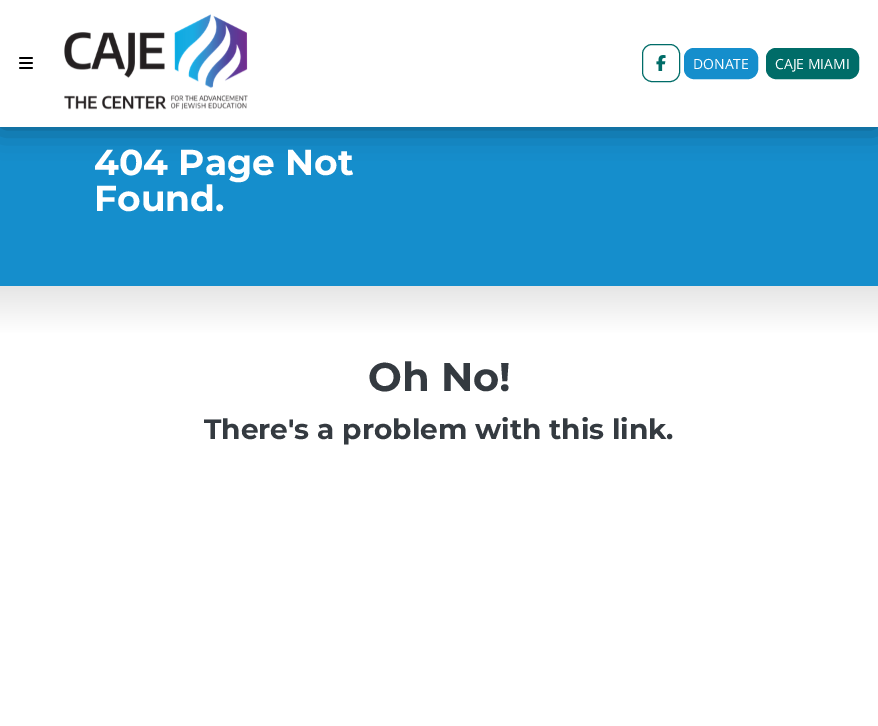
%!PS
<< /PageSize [878 726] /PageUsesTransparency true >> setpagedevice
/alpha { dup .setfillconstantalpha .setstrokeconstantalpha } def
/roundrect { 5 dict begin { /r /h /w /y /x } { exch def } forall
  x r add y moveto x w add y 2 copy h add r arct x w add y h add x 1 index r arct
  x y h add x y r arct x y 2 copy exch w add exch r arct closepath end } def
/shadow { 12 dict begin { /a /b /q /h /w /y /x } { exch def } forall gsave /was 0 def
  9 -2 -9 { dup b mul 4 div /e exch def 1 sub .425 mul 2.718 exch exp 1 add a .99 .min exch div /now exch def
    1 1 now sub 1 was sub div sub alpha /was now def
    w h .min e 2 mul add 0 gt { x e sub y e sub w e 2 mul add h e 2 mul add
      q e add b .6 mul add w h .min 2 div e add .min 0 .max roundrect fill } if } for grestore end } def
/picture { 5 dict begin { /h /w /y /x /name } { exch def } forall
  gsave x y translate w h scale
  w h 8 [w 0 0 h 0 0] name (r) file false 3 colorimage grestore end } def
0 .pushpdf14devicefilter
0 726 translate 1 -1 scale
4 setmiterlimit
0.082 0.557 0.8 setrgbcolor
0 0 878 726 rectfill
0 setgray
0 0 878 127 0 15 0.4 shadow
1 setgray
0 0 878 127 rectfill
(img1.rgb) 19 57 14 12 picture
(img2.rgb) 64 14 184 96 picture
0 0.424 0.408 setrgbcolor
642.5 44.5 37 37 9.5 roundrect stroke
(img3.rgb) 656 55 10 16 picture
0.082 0.557 0.8 setrgbcolor
684.5 48.5 73 30 9.5 roundrect gsave fill grestore
stroke
/OpenSans-Regular [14 0 0 -14 0 0] selectfont
1 setgray
693 69 moveto (DONATE) show
0 0.424 0.408 setrgbcolor
766.5 48.5 92 30 9.5 roundrect gsave fill grestore
stroke
1 setgray
775 69 moveto (CAJE MIAMI) show
/Montserrat-Bold [36 0 0 -36 0 0] selectfont
94 175 moveto (404 Page Not) show
94 211 moveto (Found.) show
gsave newpath 0 287 moveto 878 287 lineto 878 726 lineto 0 726 lineto closepath clip newpath
<< /ShadingType 2 /ColorSpace /DeviceRGB /Coords [439 287 439 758] /Extend [true true] /Function << /FunctionType 3 /Domain [0 1] /Functions [<< /FunctionType 2 /Domain [0 1] /C0 [0.902 0.902 0.902] /C1 [1 1 1] /N 1 >> << /FunctionType 2 /Domain [0 1] /C0 [1 1 1] /C1 [1 1 1] /N 1 >>] /Bounds [0.1] /Encode [0 1 0 1] >> >> shfill grestore
0.902 setgray
0 286 878 1 rectfill
/Montserrat-Bold [40 0 0 -40 0 0] selectfont
0.204 0.227 0.251 setrgbcolor
368 391 moveto (Oh No!) show
/Montserrat-Bold [28 0 0 -28 0 0] selectfont
204 439 moveto (There's a problem with this link.) show
.poppdf14devicefilter showpage
